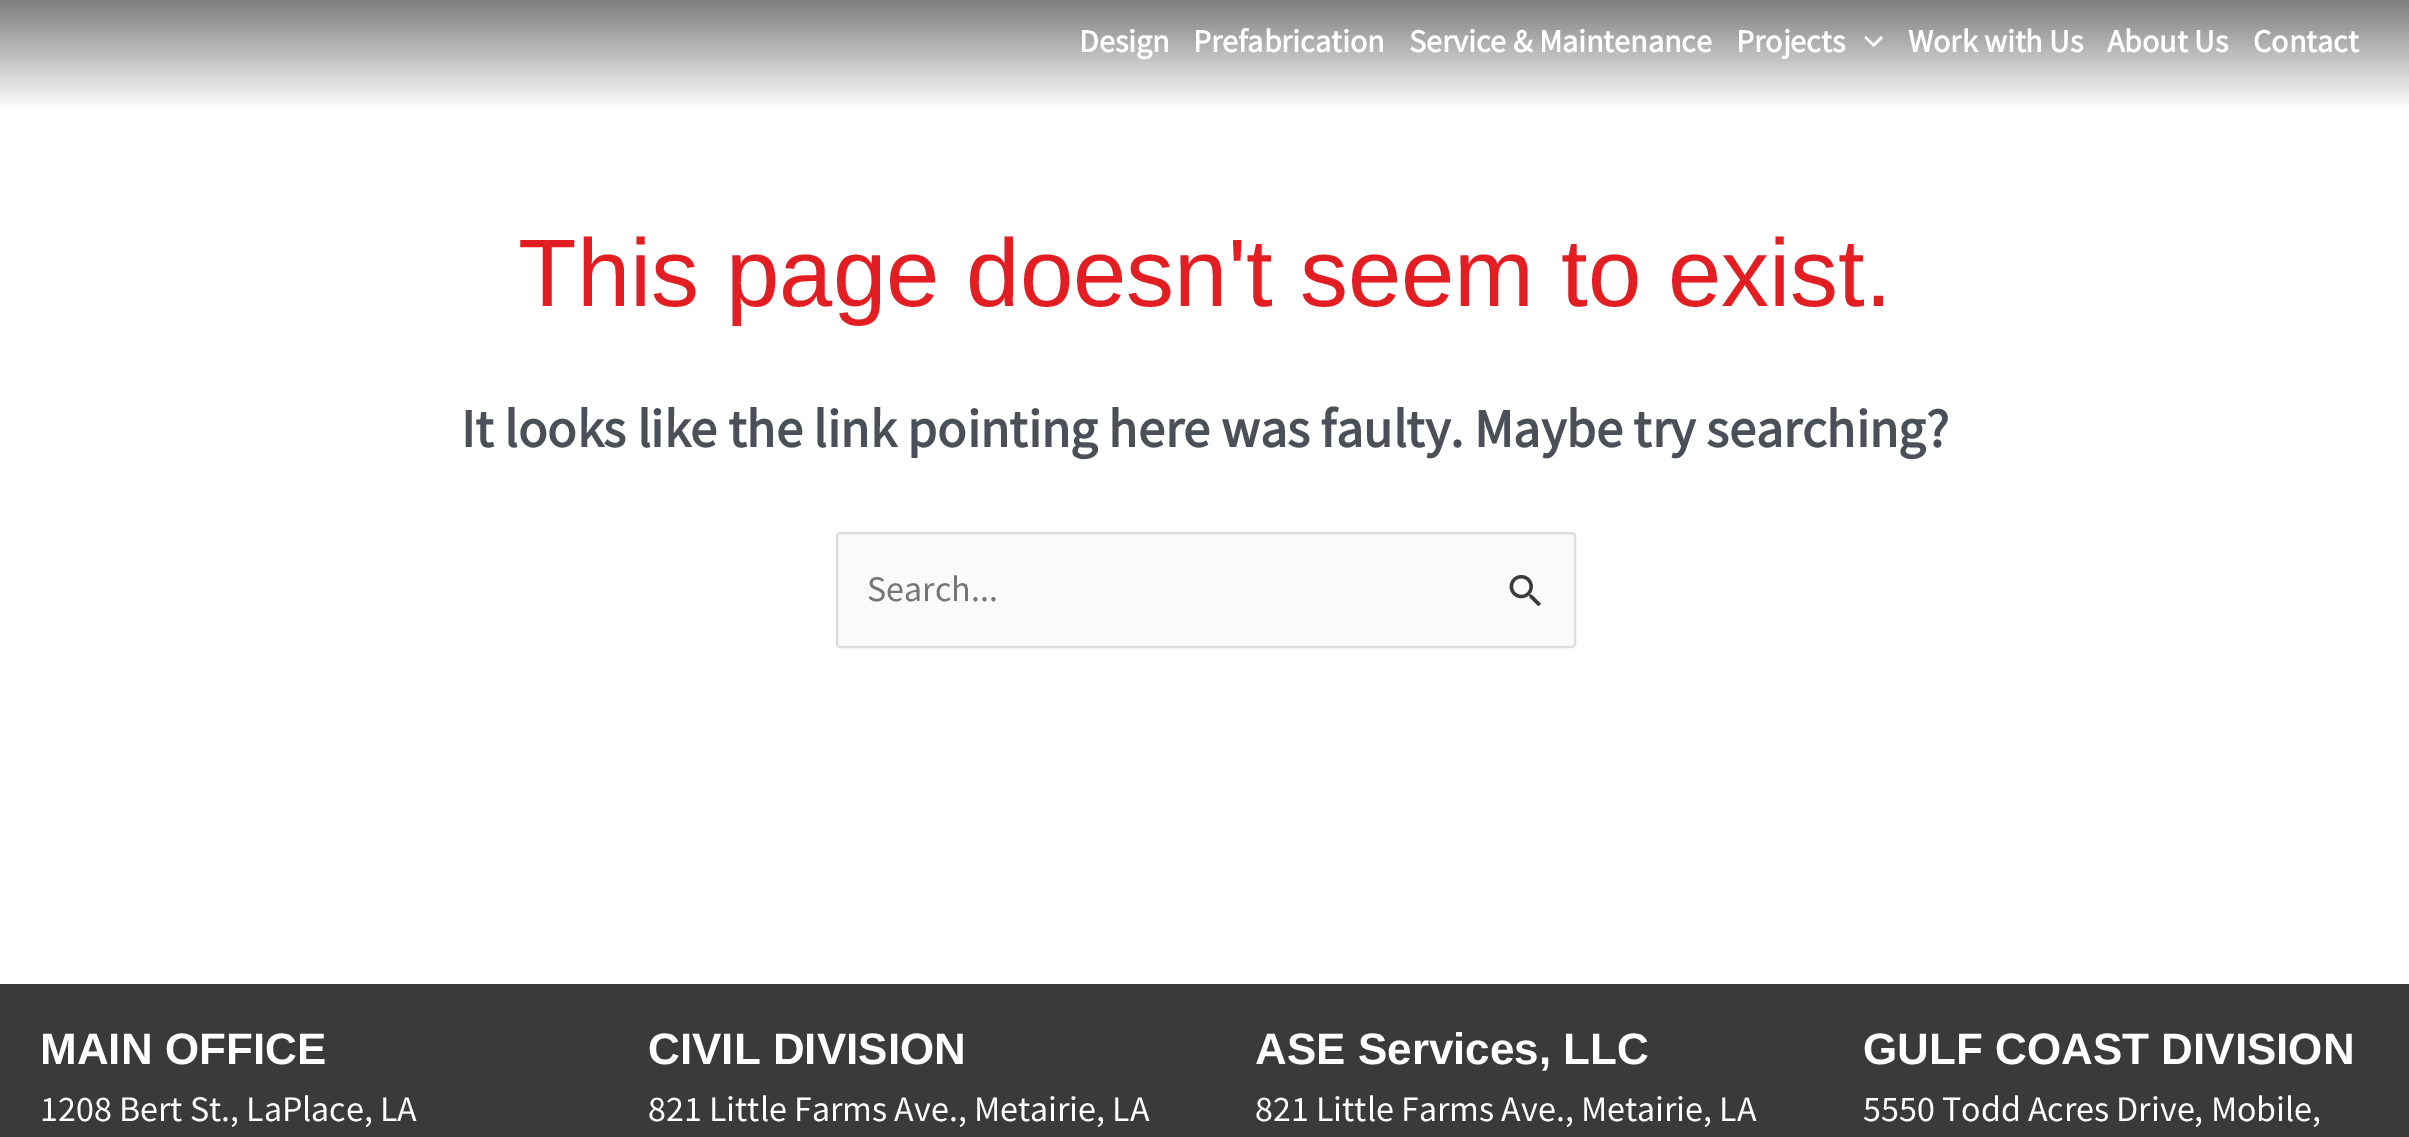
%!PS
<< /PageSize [2409 1137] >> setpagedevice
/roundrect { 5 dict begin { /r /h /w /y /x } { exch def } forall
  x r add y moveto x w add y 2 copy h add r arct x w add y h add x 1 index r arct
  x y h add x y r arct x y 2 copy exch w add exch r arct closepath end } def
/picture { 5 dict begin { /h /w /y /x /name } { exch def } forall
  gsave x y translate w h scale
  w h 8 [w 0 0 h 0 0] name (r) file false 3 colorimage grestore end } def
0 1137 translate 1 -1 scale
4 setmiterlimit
1 setgray
0 0 2409 1137 rectfill
gsave newpath 0 0 moveto 2409 0 lineto 2409 108 lineto 0 108 lineto closepath clip newpath
<< /ShadingType 2 /ColorSpace /DeviceRGB /Coords [1205 -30 1205 110] /Extend [true true] /Function << /FunctionType 2 /Domain [0 1] /C0 [0.353 0.353 0.353] /C1 [1 1 1] /N 1 >> >> shfill grestore
/SourceSansPro-Bold [32 0 0 -32 0 0] selectfont
1079 52 moveto (Design) show
1193 52 moveto (Prefabrication) show
1409 52 moveto (Service & Maintenance) show
1736 52 moveto (Projects) show
newpath 1864.5 38 moveto 1873.5 47 lineto 1883 38 lineto 1881 36 lineto 1873.5 43.5 lineto 1866 36 lineto closepath fill
1908 52 moveto (Work with Us) show
2107 52 moveto (About Us) show
2253 52 moveto (Contact) show
/LiberationSans-Regular [96 0 0 -96 0 0] selectfont
0.89 0.118 0.137 setrgbcolor
518 306 moveto (This page doesn't seem to exist.) show
/SourceSansPro-Bold [54 0 0 -54 0 0] selectfont
0.294 0.31 0.345 setrgbcolor
461 447 moveto (It looks like the link pointing here was faulty. Maybe try searching?) show
0.98 setgray
837 533 738 114 3 roundrect gsave fill grestore
0.867 setgray
2 setlinewidth
stroke
/SourceSansPro-Regular [36 0 0 -36 0 0] selectfont
0.459 setgray
867 601 moveto (Search...) show
(img1.rgb) 1509 574 32 33 picture
0.227 setgray
0 984 2409 153 rectfill
/LiberationSans-Bold [44 0 0 -44 0 0] selectfont
1 setgray
40 1064 moveto (MAIN OFFICE) show
/SourceSansPro-Regular [36 0 0 -36 0 0] selectfont
40 1121 moveto (1208 Bert St., LaPlace, LA) show
/LiberationSans-Bold [44 0 0 -44 0 0] selectfont
648 1064 moveto (CIVIL DIVISION) show
/SourceSansPro-Regular [36 0 0 -36 0 0] selectfont
648 1121 moveto (821 Little Farms Ave., Metairie, LA) show
/LiberationSans-Bold [44 0 0 -44 0 0] selectfont
1255 1064 moveto (ASE Services, LLC) show
/SourceSansPro-Regular [36 0 0 -36 0 0] selectfont
1255 1121 moveto (821 Little Farms Ave., Metairie, LA) show
/LiberationSans-Bold [44 0 0 -44 0 0] selectfont
1863 1064 moveto (GULF COAST DIVISION) show
/SourceSansPro-Regular [36 0 0 -36 0 0] selectfont
1863 1121 moveto (5550 Todd Acres Drive, Mobile,) show
showpage
